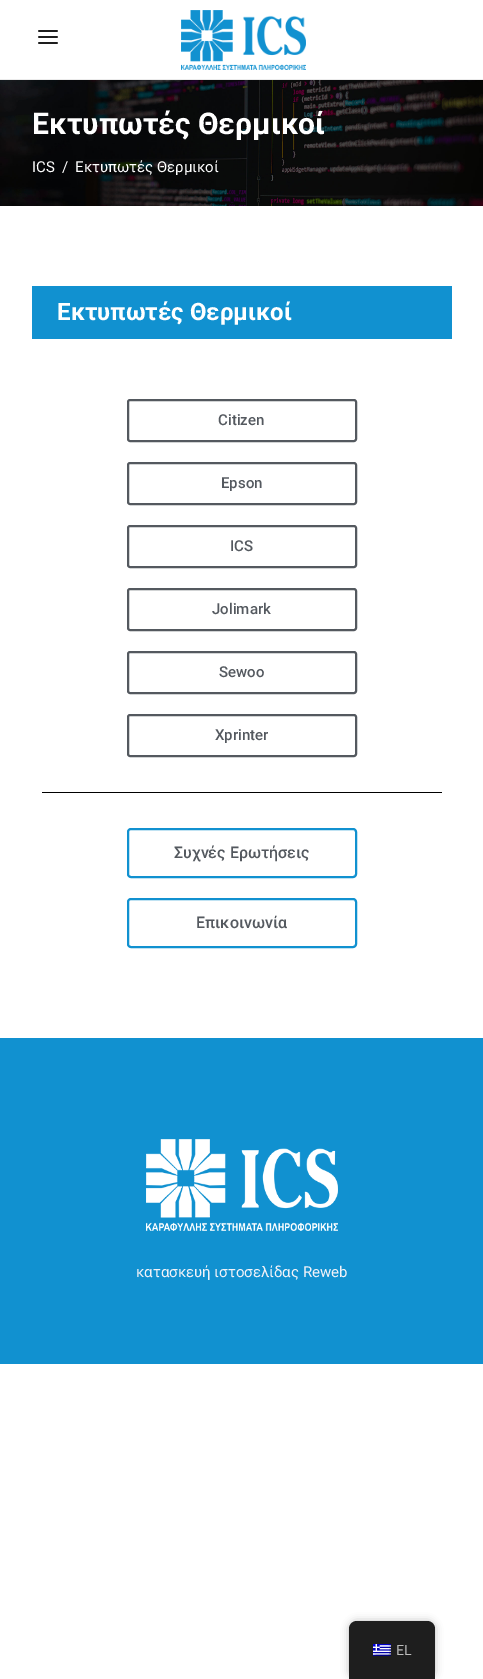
%!PS
<< /PageSize [483 1679] /PageUsesTransparency true >> setpagedevice
/alpha { dup .setfillconstantalpha .setstrokeconstantalpha } def
/roundrect { 5 dict begin { /r /h /w /y /x } { exch def } forall
  x r add y moveto x w add y 2 copy h add r arct x w add y h add x 1 index r arct
  x y h add x y r arct x y 2 copy exch w add exch r arct closepath end } def
/shadow { 12 dict begin { /a /b /q /h /w /y /x } { exch def } forall gsave /was 0 def
  9 -2 -9 { dup b mul 4 div /e exch def 1 sub .425 mul 2.718 exch exp 1 add a .99 .min exch div /now exch def
    1 1 now sub 1 was sub div sub alpha /was now def
    w h .min e 2 mul add 0 gt { x e sub y e sub w e 2 mul add h e 2 mul add
      q e add b .6 mul add w h .min 2 div e add .min 0 .max roundrect fill } if } for grestore end } def
/picture { 5 dict begin { /h /w /y /x /name } { exch def } forall
  gsave x y translate w h scale
  w h 8 [w 0 0 h 0 0] name (r) file false 3 colorimage grestore end } def
0 .pushpdf14devicefilter
0 1679 translate 1 -1 scale
4 setmiterlimit
1 setgray
0 0 483 1679 rectfill
0.922 setgray
0 79 483 1 rectfill
(img1.rgb) 38 30 20 14 picture
(img2.rgb) 181 10 125 60 picture
(img3.rgb) 0 80 483 126 picture
/Roboto-Bold [30 0 0 -30 0 0] selectfont
1 setgray
32 134 moveto (Εκτυπωτές Θερμικοί) show
/Roboto-Regular [15 0 0 -15 0 0] selectfont
32 172 moveto (ICS) show
62 172 moveto (/) show
75 172 moveto (Εκτυπωτές Θερμικοί) show
0.067 0.569 0.816 setrgbcolor
32 286 420 53 rectfill
/Roboto-Bold [24 0 0 -24 0 0] selectfont
1 setgray
57 320 moveto (Εκτυπωτές Θερμικοί) show
0.329 0.349 0.373 setrgbcolor
2 setlinewidth
128 400 228 41 2 roundrect stroke
/Roboto-Medium [15 0 0 -15 0 0] selectfont
218 425 moveto (Citizen) show
128 463 228 41 2 roundrect stroke
221 488 moveto (Epson) show
128 526 228 41 2 roundrect stroke
230 551 moveto (ICS) show
128 589 228 41 2 roundrect stroke
212 614 moveto (Jolimark) show
128 652 228 41 2 roundrect stroke
219 677 moveto (Sewoo) show
128 715 228 41 2 roundrect stroke
215 740 moveto (Xprinter) show
0 setgray
42 792 400 1 rectfill
0.067 0.569 0.816 setrgbcolor
128 829 228 48 3 roundrect stroke
/Roboto-Medium [16 0 0 -16 0 0] selectfont
0.329 0.349 0.373 setrgbcolor
174 858 moveto (Συχνές Ερωτήσεις) show
0.067 0.569 0.816 setrgbcolor
128 899 228 48 3 roundrect stroke
0.329 0.349 0.373 setrgbcolor
196 928 moveto (Επικοινωνία) show
0.067 0.569 0.816 setrgbcolor
0 1038 483 326 rectfill
(img4.rgb) 146 1139 192 92 picture
/Roboto-Regular [15 0 0 -15 0 0] selectfont
0.949 0.949 0.973 setrgbcolor
136 1277 moveto (κατασκευή ιστοσελίδας Reweb) show
0 setgray
349 1621 86 58 8 4 0.25 shadow
0.118 setgray
newpath 357 1621 moveto 427 1621 lineto 431.5 1621 435 1624.5 435 1629 curveto 435 1679 lineto 349 1679 lineto 349 1629 lineto 349 1624.5 352.5 1621 357 1621 curveto closepath fill
(img5.rgb) 373 1644 18 12 picture
/Roboto-Regular [14 0 0 -14 0 0] selectfont
0.741 setgray
396 1655 moveto (EL) show
.poppdf14devicefilter showpage
